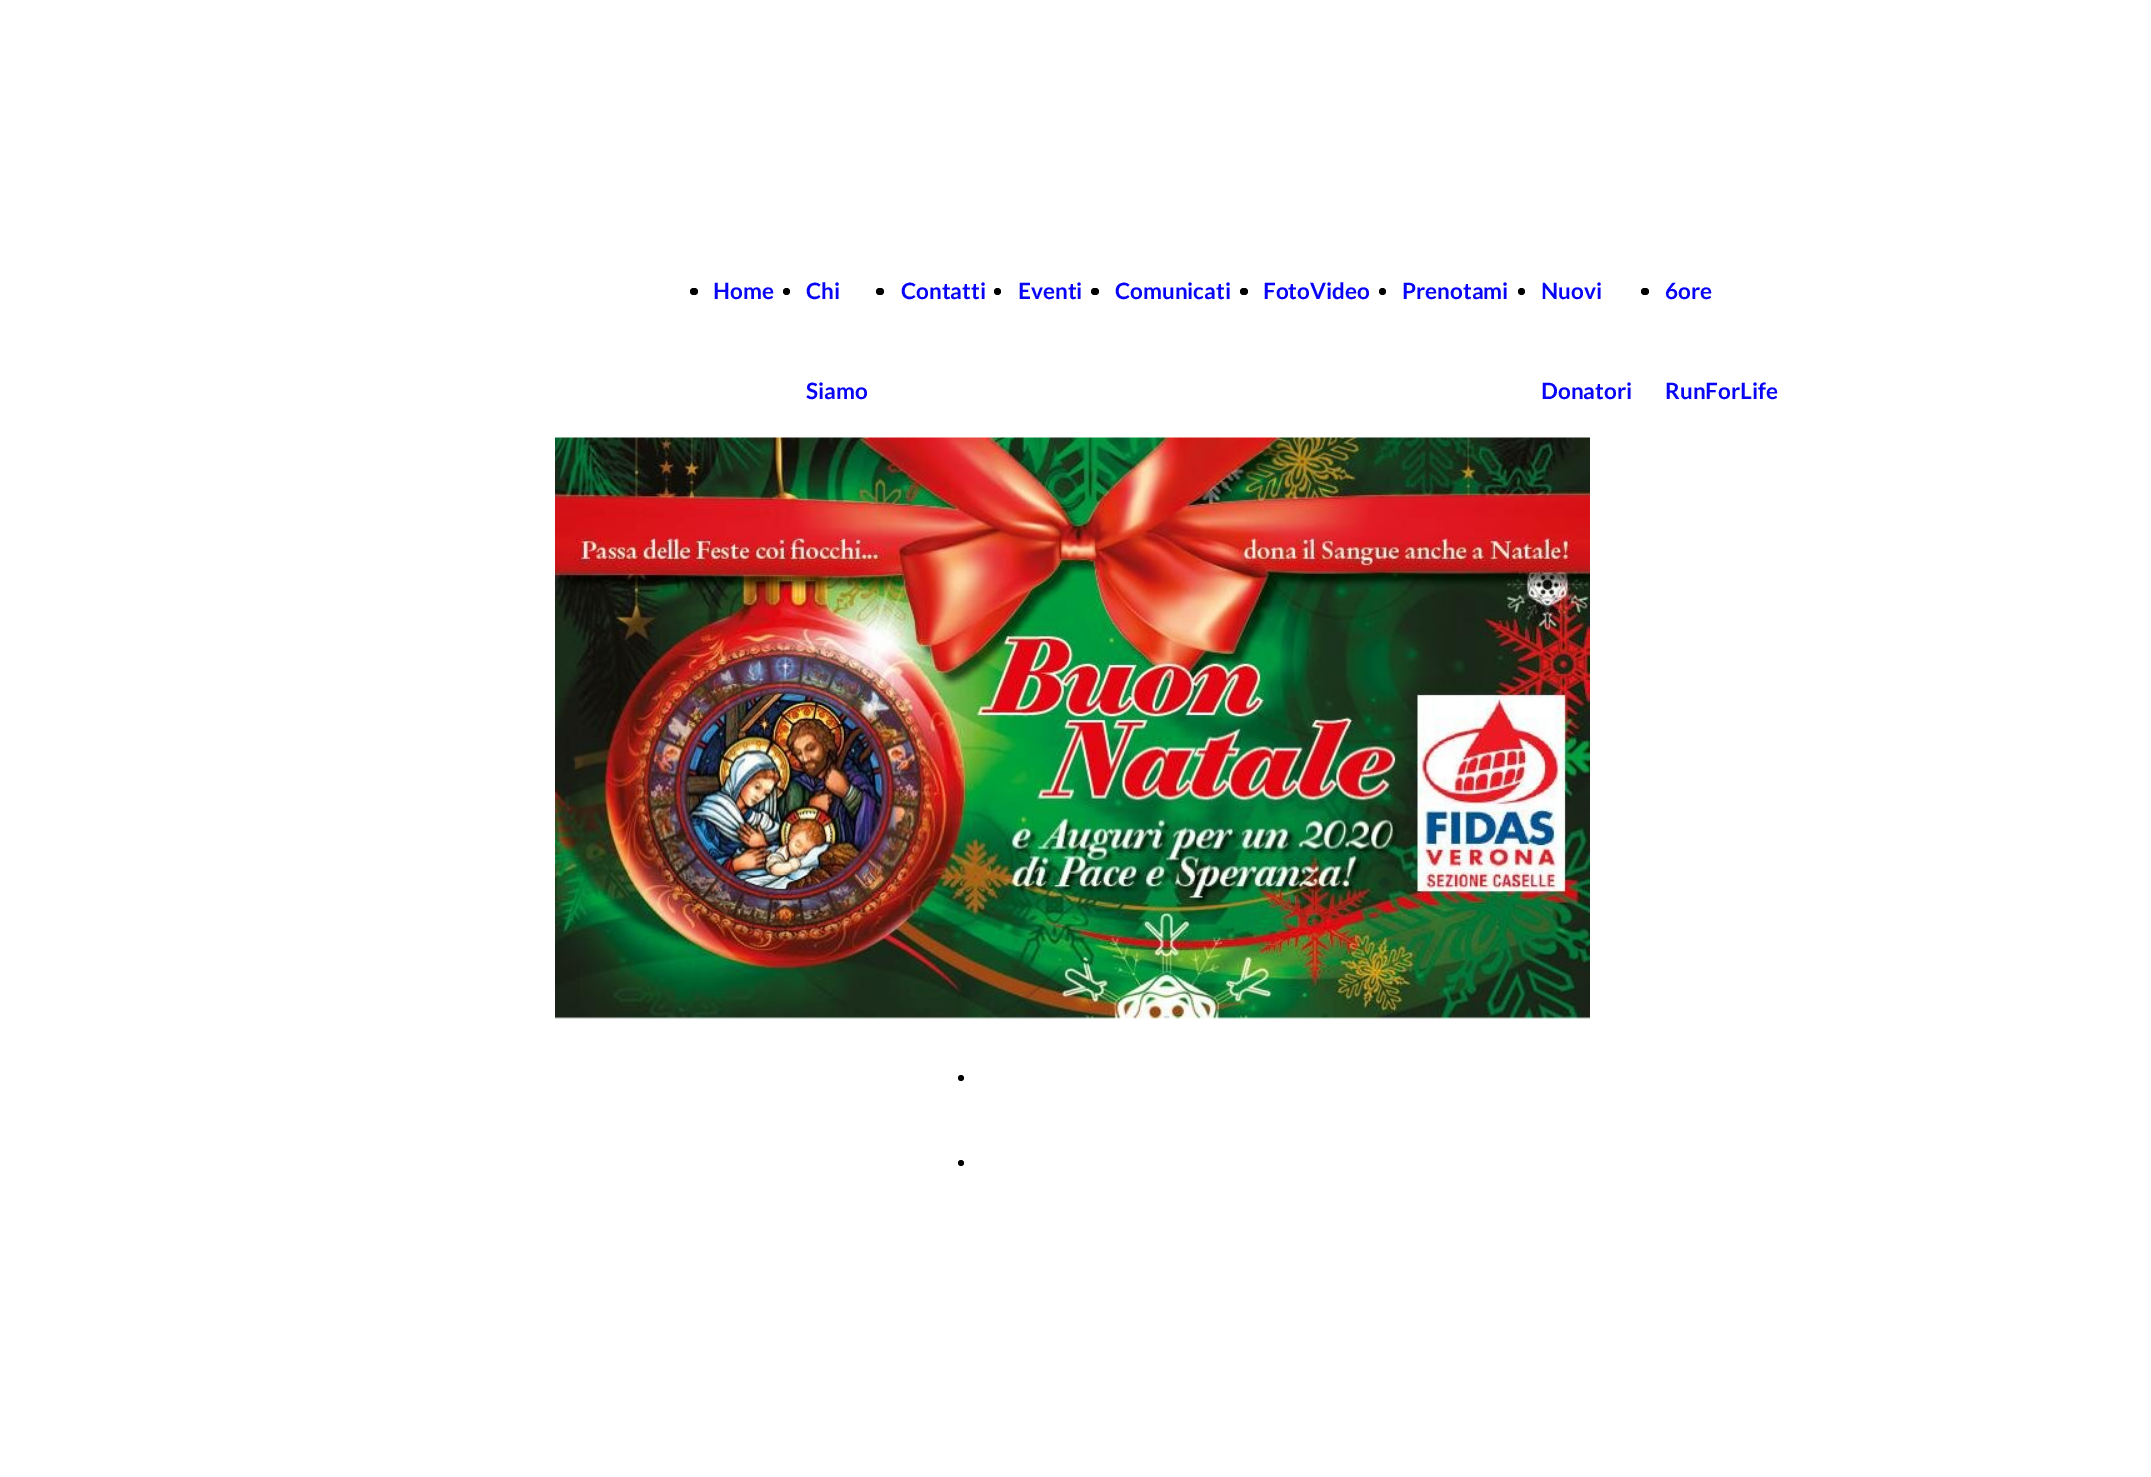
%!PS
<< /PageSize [2151 1477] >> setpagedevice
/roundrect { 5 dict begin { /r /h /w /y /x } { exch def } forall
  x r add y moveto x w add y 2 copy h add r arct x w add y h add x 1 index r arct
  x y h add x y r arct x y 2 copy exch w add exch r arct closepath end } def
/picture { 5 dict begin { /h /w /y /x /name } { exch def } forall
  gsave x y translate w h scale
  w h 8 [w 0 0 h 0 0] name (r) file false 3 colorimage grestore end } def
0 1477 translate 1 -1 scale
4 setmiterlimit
1 setgray
0 0 2151 1477 rectfill
0 setgray
690 288 8 7 3.5 roundrect fill
/Lato-Bold [22.5 0 0 -22.5 0 0] selectfont
0.031 0.016 0.961 setrgbcolor
713 299 moveto (Home) show
0 setgray
newpath 786.5 291.5 3.5 0 360 arc closepath fill
0.031 0.016 0.961 setrgbcolor
806 299 moveto (Chi) show
806 399 moveto (Siamo) show
0 setgray
876 288 8 7 3.5 roundrect fill
0.031 0.016 0.961 setrgbcolor
901 299 moveto (Contatti) show
0 setgray
newpath 997.5 291.5 3.5 0 360 arc closepath fill
0.031 0.016 0.961 setrgbcolor
1018 299 moveto (Eventi) show
0 setgray
1091 288 8 7 3.5 roundrect fill
0.031 0.016 0.961 setrgbcolor
1115 299 moveto (Comunicati) show
0 setgray
1240 288 8 7 3.5 roundrect fill
0.031 0.016 0.961 setrgbcolor
1263 299 moveto (FotoVideo) show
0 setgray
newpath 1382.5 291.5 3.5 0 360 arc closepath fill
0.031 0.016 0.961 setrgbcolor
1402 299 moveto (Prenotami) show
0 setgray
newpath 1521.5 291.5 3.5 0 360 arc closepath fill
0.031 0.016 0.961 setrgbcolor
1541 299 moveto (Nuovi) show
1541 399 moveto (Donatori) show
0 setgray
1641 288 8 7 3.5 roundrect fill
0.031 0.016 0.961 setrgbcolor
1665 299 moveto (6ore) show
1665 399 moveto (RunForLife) show
(img1.rgb) 555 437 1035 582 picture
0 setgray
newpath 961 1078 3 0 360 arc closepath fill
newpath 961 1163 3 0 360 arc closepath fill
showpage
